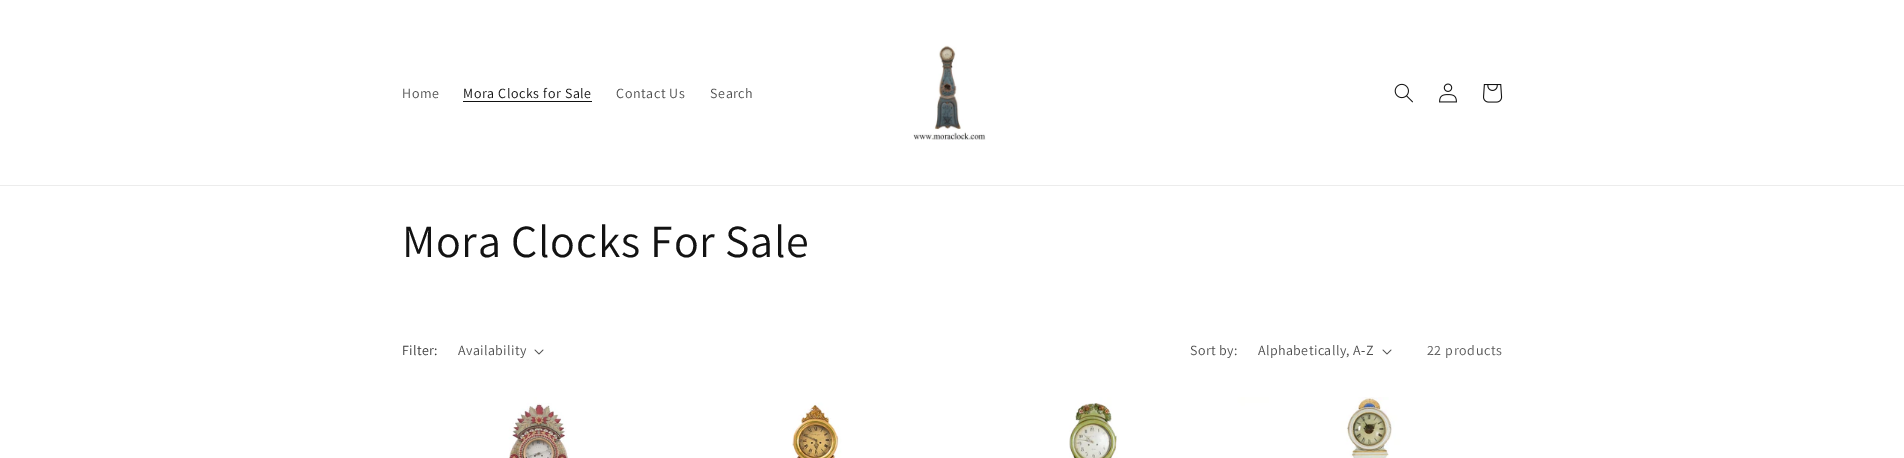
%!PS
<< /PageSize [1904 458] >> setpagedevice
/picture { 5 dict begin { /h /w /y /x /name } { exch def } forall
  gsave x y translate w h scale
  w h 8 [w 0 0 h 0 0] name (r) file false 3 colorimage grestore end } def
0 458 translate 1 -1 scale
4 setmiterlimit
1 setgray
0 0 1904 458 rectfill
0.925 setgray
0 185 1904 1 rectfill
/Assistant-Regular [14 0 0 -14 0 0] selectfont
0.302 setgray
402 98 moveto 0.6 0 (Home) ashow
0.071 setgray
463 98 moveto 0.6 0 (Mora Clocks for Sale) ashow
463 101 129 1 rectfill
0.302 setgray
616 98 moveto 0.6 0 (Contact Us) ashow
710 98 moveto 0.6 0 (Search) ashow
(img1.rgb) 913 45 73 95 picture
(img2.rgb) 1394 83 19 20 picture
(img3.rgb) 1439 83 18 20 picture
(img4.rgb) 1483 84 20 19 picture
/Assistant-Regular [46 0 0 -46 0 0] selectfont
0.071 setgray
402 257 moveto 0.7 0 (Mora Clocks For Sale) ashow
/Assistant-Regular [14 0 0 -14 0 0] selectfont
0.212 setgray
402 355 moveto 0.4 0 (Filter:) ashow
0.302 setgray
458 355 moveto 0.4 0 (Availability) ashow
(img5.rgb) 534 349 10 6 picture
1190 355 moveto 0.4 0 (Sort by:) ashow
1258 355 moveto 0.4 0 (Alphabetically, A-Z) ashow
(img5.rgb) 1382 349 10 6 picture
0.349 setgray
1427 355 moveto 0.6 0 (22 products) ashow
(img6.rgb) 402 397 269 61 picture
(img7.rgb) 679 397 269 61 picture
(img8.rgb) 956 397 269 61 picture
(img9.rgb) 1233 397 269 61 picture
showpage
